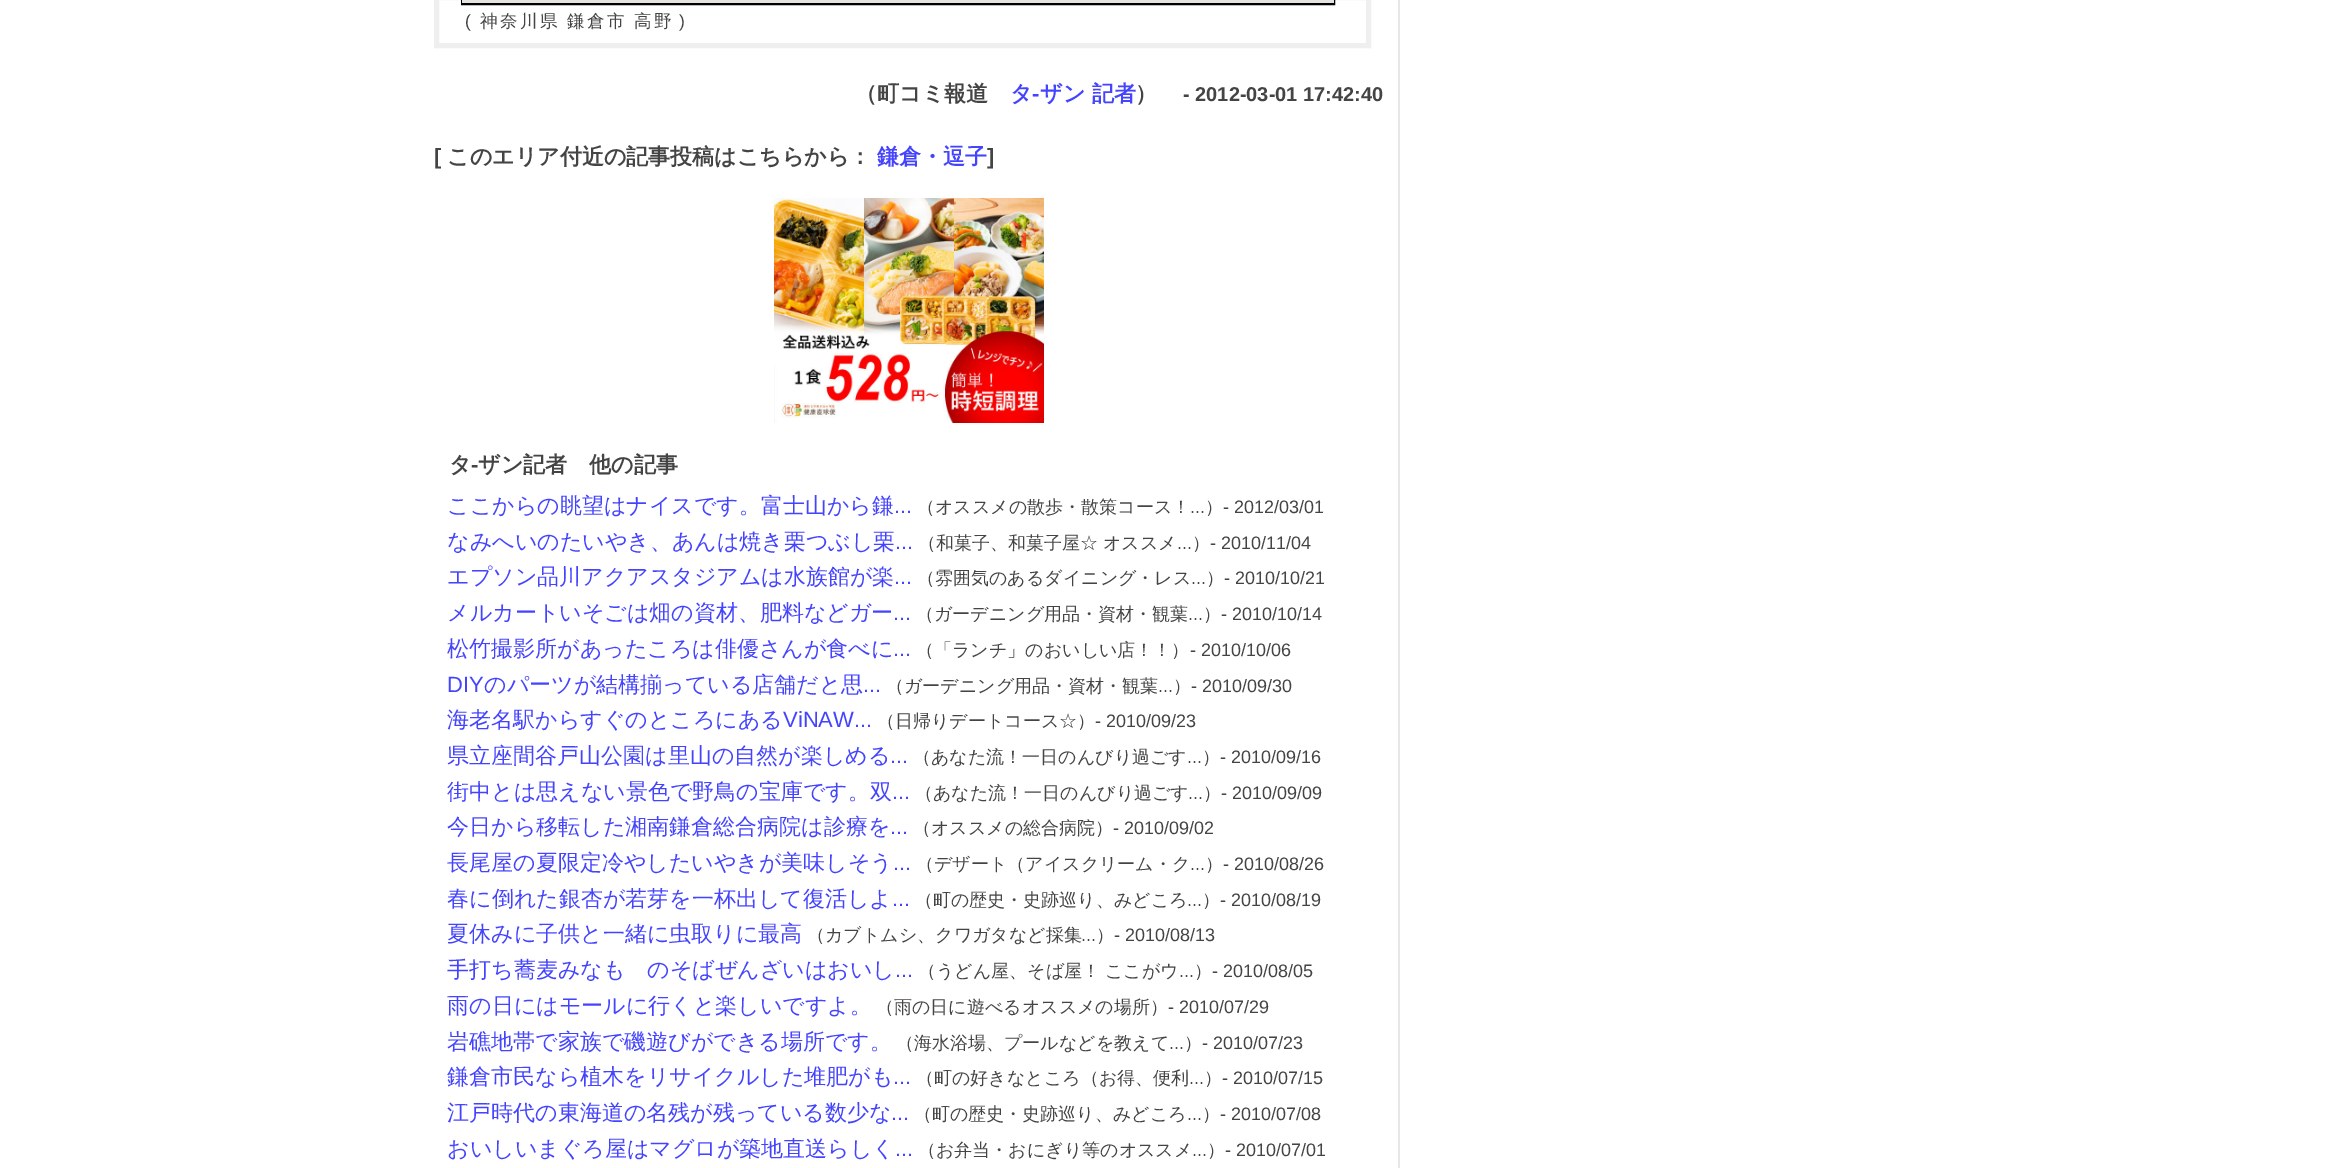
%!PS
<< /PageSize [2328 1168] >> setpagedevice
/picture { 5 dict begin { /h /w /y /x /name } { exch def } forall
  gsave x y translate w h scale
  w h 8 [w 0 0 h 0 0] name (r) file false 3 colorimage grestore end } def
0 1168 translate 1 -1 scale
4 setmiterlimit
1 setgray
0 0 2328 1168 rectfill
0.906 setgray
1398 0 2 1168 rectfill
0.937 setgray
5 setlinewidth
436.5 -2.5 932 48 rectstroke
0 setgray
2 setlinewidth
462 -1 872 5 rectstroke
0.898 0.89 0.875 setrgbcolor
462 0 872 3 rectfill
/LiberationSans-Regular [17.6 0 0 -17.6 0 0] selectfont
0.267 setgray
465 27 moveto 2.25 0 (\() ashow
/WenQuanYiZenHei-Medium [17.6 0 0 -17.6 0 0] selectfont
480 27 moveto 2.25 0 (神奈川県 鎌倉市 高野) ashow
/LiberationSans-Regular [17.6 0 0 -17.6 0 0] selectfont
679 27 moveto 2.25 0 (\)) ashow
/WenQuanYiZenHei-Bold [22 0 0 -22 0 0] selectfont
855 101 moveto (（町コミ報道) show
0.267 0.267 1 setrgbcolor
1010 101 moveto (タ) show
/LiberationSans-Bold [22 0 0 -22 0 0] selectfont
1032 101 moveto (-) show
/WenQuanYiZenHei-Bold [22 0 0 -22 0 0] selectfont
1040 101 moveto (ザン 記者) show
0.267 setgray
1135 101 moveto (）) show
/LiberationSans-Bold [20 0 0 -20 0 0] selectfont
1183 101 moveto (- 2012-03-01 17:42:40) show
/LiberationSans-Bold [22 0 0 -22 0 0] selectfont
434 164 moveto ([) show
/WenQuanYiZenHei-Bold [22 0 0 -22 0 0] selectfont
447 164 moveto (このエリア付近の記事投稿はこちらから：) show
0.267 0.267 1 setrgbcolor
877 164 moveto (鎌倉・逗子) show
/LiberationSans-Bold [22 0 0 -22 0 0] selectfont
0.267 setgray
987 164 moveto (]) show
(img1.rgb) 774 198 270 225 picture
/WenQuanYiZenHei-Bold [22 0 0 -22 0 0] selectfont
449 472 moveto (タ) show
/LiberationSans-Bold [22 0 0 -22 0 0] selectfont
471 472 moveto (-) show
/WenQuanYiZenHei-Bold [22 0 0 -22 0 0] selectfont
478 472 moveto (ザン記者　他の記事) show
/WenQuanYiZenHei-Medium [22 0 0 -22 0 0] selectfont
0.267 0.267 1 setrgbcolor
447 513 moveto (ここからの眺望はナイスです。富士山から鎌) show
/LiberationSans-Regular [22 0 0 -22 0 0] selectfont
894 513 moveto (...) show
/WenQuanYiZenHei-Medium [18 0 0 -18 0 0] selectfont
0.267 setgray
917 513 moveto (（オススメの散歩・散策コース！) show
/LiberationSans-Regular [18 0 0 -18 0 0] selectfont
1190 513 moveto (...) show
/WenQuanYiZenHei-Medium [18 0 0 -18 0 0] selectfont
1205 513 moveto (）) show
/LiberationSans-Regular [18 0 0 -18 0 0] selectfont
1223 513 moveto (- 2012/03/01) show
/WenQuanYiZenHei-Medium [22 0 0 -22 0 0] selectfont
0.267 0.267 1 setrgbcolor
447 549 moveto (なみへいのたいやき、あんは焼き栗つぶし栗) show
/LiberationSans-Regular [22 0 0 -22 0 0] selectfont
895 549 moveto (...) show
/WenQuanYiZenHei-Medium [18 0 0 -18 0 0] selectfont
0.267 setgray
918 549 moveto (（和菓子、和菓子屋☆) show
1103 549 moveto (オススメ) show
/LiberationSans-Regular [18 0 0 -18 0 0] selectfont
1177 549 moveto (...) show
/WenQuanYiZenHei-Medium [18 0 0 -18 0 0] selectfont
1192 549 moveto (）) show
/LiberationSans-Regular [18 0 0 -18 0 0] selectfont
1210 549 moveto (- 2010/11/04) show
/WenQuanYiZenHei-Medium [22 0 0 -22 0 0] selectfont
0.267 0.267 1 setrgbcolor
447 584 moveto (エプソン品川アクアスタジアムは水族館が楽) show
/LiberationSans-Regular [22 0 0 -22 0 0] selectfont
894 584 moveto (...) show
/WenQuanYiZenHei-Medium [18 0 0 -18 0 0] selectfont
0.267 setgray
917 584 moveto (（雰囲気のあるダイニング・レス) show
/LiberationSans-Regular [18 0 0 -18 0 0] selectfont
1191 584 moveto (...) show
/WenQuanYiZenHei-Medium [18 0 0 -18 0 0] selectfont
1206 584 moveto (）) show
/LiberationSans-Regular [18 0 0 -18 0 0] selectfont
1224 584 moveto (- 2010/10/21) show
/WenQuanYiZenHei-Medium [22 0 0 -22 0 0] selectfont
0.267 0.267 1 setrgbcolor
447 620 moveto (メルカートいそごは畑の資材、肥料などガー) show
/LiberationSans-Regular [22 0 0 -22 0 0] selectfont
893 620 moveto (...) show
/WenQuanYiZenHei-Medium [18 0 0 -18 0 0] selectfont
0.267 setgray
916 620 moveto (（ガーデニング用品・資材・観葉) show
/LiberationSans-Regular [18 0 0 -18 0 0] selectfont
1188 620 moveto (...) show
/WenQuanYiZenHei-Medium [18 0 0 -18 0 0] selectfont
1203 620 moveto (）) show
/LiberationSans-Regular [18 0 0 -18 0 0] selectfont
1221 620 moveto (- 2010/10/14) show
/WenQuanYiZenHei-Medium [22 0 0 -22 0 0] selectfont
0.267 0.267 1 setrgbcolor
447 656 moveto (松竹撮影所があったころは俳優さんが食べに) show
/LiberationSans-Regular [22 0 0 -22 0 0] selectfont
893 656 moveto (...) show
/WenQuanYiZenHei-Medium [18 0 0 -18 0 0] selectfont
0.267 setgray
916 656 moveto (（「ランチ」のおいしい店！！）) show
/LiberationSans-Regular [18 0 0 -18 0 0] selectfont
1190 656 moveto (- 2010/10/06) show
/LiberationSans-Regular [22 0 0 -22 0 0] selectfont
0.267 0.267 1 setrgbcolor
447 692 moveto (DIY) show
/WenQuanYiZenHei-Medium [22 0 0 -22 0 0] selectfont
484 692 moveto (のパーツが結構揃っている店舗だと思) show
/LiberationSans-Regular [22 0 0 -22 0 0] selectfont
863 692 moveto (...) show
/WenQuanYiZenHei-Medium [18 0 0 -18 0 0] selectfont
0.267 setgray
886 692 moveto (（ガーデニング用品・資材・観葉) show
/LiberationSans-Regular [18 0 0 -18 0 0] selectfont
1158 692 moveto (...) show
/WenQuanYiZenHei-Medium [18 0 0 -18 0 0] selectfont
1173 692 moveto (）) show
/LiberationSans-Regular [18 0 0 -18 0 0] selectfont
1191 692 moveto (- 2010/09/30) show
/WenQuanYiZenHei-Medium [22 0 0 -22 0 0] selectfont
0.267 0.267 1 setrgbcolor
447 727 moveto (海老名駅からすぐのところにある) show
/LiberationSans-Regular [22 0 0 -22 0 0] selectfont
783 727 moveto (ViNAW...) show
/WenQuanYiZenHei-Medium [18 0 0 -18 0 0] selectfont
0.267 setgray
877 727 moveto (（日帰りデートコース☆）) show
/LiberationSans-Regular [18 0 0 -18 0 0] selectfont
1095 727 moveto (- 2010/09/23) show
/WenQuanYiZenHei-Medium [22 0 0 -22 0 0] selectfont
0.267 0.267 1 setrgbcolor
447 763 moveto (県立座間谷戸山公園は里山の自然が楽しめる) show
/LiberationSans-Regular [22 0 0 -22 0 0] selectfont
890 763 moveto (...) show
/WenQuanYiZenHei-Medium [18 0 0 -18 0 0] selectfont
0.267 setgray
913 763 moveto (（あなた流！一日のんびり過ごす) show
/LiberationSans-Regular [18 0 0 -18 0 0] selectfont
1187 763 moveto (...) show
/WenQuanYiZenHei-Medium [18 0 0 -18 0 0] selectfont
1202 763 moveto (）) show
/LiberationSans-Regular [18 0 0 -18 0 0] selectfont
1220 763 moveto (- 2010/09/16) show
/WenQuanYiZenHei-Medium [22 0 0 -22 0 0] selectfont
0.267 0.267 1 setrgbcolor
447 799 moveto (街中とは思えない景色で野鳥の宝庫です。双) show
/LiberationSans-Regular [22 0 0 -22 0 0] selectfont
892 799 moveto (...) show
/WenQuanYiZenHei-Medium [18 0 0 -18 0 0] selectfont
0.267 setgray
915 799 moveto (（あなた流！一日のんびり過ごす) show
/LiberationSans-Regular [18 0 0 -18 0 0] selectfont
1188 799 moveto (...) show
/WenQuanYiZenHei-Medium [18 0 0 -18 0 0] selectfont
1203 799 moveto (）) show
/LiberationSans-Regular [18 0 0 -18 0 0] selectfont
1221 799 moveto (- 2010/09/09) show
/WenQuanYiZenHei-Medium [22 0 0 -22 0 0] selectfont
0.267 0.267 1 setrgbcolor
447 834 moveto (今日から移転した湘南鎌倉総合病院は診療を) show
/LiberationSans-Regular [22 0 0 -22 0 0] selectfont
890 834 moveto (...) show
/WenQuanYiZenHei-Medium [18 0 0 -18 0 0] selectfont
0.267 setgray
913 834 moveto (（オススメの総合病院）) show
/LiberationSans-Regular [18 0 0 -18 0 0] selectfont
1113 834 moveto (- 2010/09/02) show
/WenQuanYiZenHei-Medium [22 0 0 -22 0 0] selectfont
0.267 0.267 1 setrgbcolor
447 870 moveto (長尾屋の夏限定冷やしたいやきが美味しそう) show
/LiberationSans-Regular [22 0 0 -22 0 0] selectfont
893 870 moveto (...) show
/WenQuanYiZenHei-Medium [18 0 0 -18 0 0] selectfont
0.267 setgray
916 870 moveto (（デザート（アイスクリーム・ク) show
/LiberationSans-Regular [18 0 0 -18 0 0] selectfont
1190 870 moveto (...) show
/WenQuanYiZenHei-Medium [18 0 0 -18 0 0] selectfont
1205 870 moveto (）) show
/LiberationSans-Regular [18 0 0 -18 0 0] selectfont
1223 870 moveto (- 2010/08/26) show
/WenQuanYiZenHei-Medium [22 0 0 -22 0 0] selectfont
0.267 0.267 1 setrgbcolor
447 906 moveto (春に倒れた銀杏が若芽を一杯出して復活しよ) show
/LiberationSans-Regular [22 0 0 -22 0 0] selectfont
892 906 moveto (...) show
/WenQuanYiZenHei-Medium [18 0 0 -18 0 0] selectfont
0.267 setgray
915 906 moveto (（町の歴史・史跡巡り、みどころ) show
/LiberationSans-Regular [18 0 0 -18 0 0] selectfont
1187 906 moveto (...) show
/WenQuanYiZenHei-Medium [18 0 0 -18 0 0] selectfont
1202 906 moveto (）) show
/LiberationSans-Regular [18 0 0 -18 0 0] selectfont
1220 906 moveto (- 2010/08/19) show
/WenQuanYiZenHei-Medium [22 0 0 -22 0 0] selectfont
0.267 0.267 1 setrgbcolor
447 941 moveto (夏休みに子供と一緒に虫取りに最高) show
/WenQuanYiZenHei-Medium [18 0 0 -18 0 0] selectfont
0.267 setgray
807 941 moveto (（カブトムシ、クワガタなど採集) show
/LiberationSans-Regular [18 0 0 -18 0 0] selectfont
1081 941 moveto (...) show
/WenQuanYiZenHei-Medium [18 0 0 -18 0 0] selectfont
1096 941 moveto (）) show
/LiberationSans-Regular [18 0 0 -18 0 0] selectfont
1114 941 moveto (- 2010/08/13) show
/WenQuanYiZenHei-Medium [22 0 0 -22 0 0] selectfont
0.267 0.267 1 setrgbcolor
447 977 moveto (手打ち蕎麦みなも　のそばぜんざいはおいし) show
/LiberationSans-Regular [22 0 0 -22 0 0] selectfont
895 977 moveto (...) show
/WenQuanYiZenHei-Medium [18 0 0 -18 0 0] selectfont
0.267 setgray
918 977 moveto (（うどん屋、そば屋！) show
1105 977 moveto (ここがウ) show
/LiberationSans-Regular [18 0 0 -18 0 0] selectfont
1179 977 moveto (...) show
/WenQuanYiZenHei-Medium [18 0 0 -18 0 0] selectfont
1194 977 moveto (）) show
/LiberationSans-Regular [18 0 0 -18 0 0] selectfont
1212 977 moveto (- 2010/08/05) show
/WenQuanYiZenHei-Medium [22 0 0 -22 0 0] selectfont
0.267 0.267 1 setrgbcolor
447 1013 moveto (雨の日にはモールに行くと楽しいですよ。) show
/WenQuanYiZenHei-Medium [18 0 0 -18 0 0] selectfont
0.267 setgray
876 1013 moveto (（雨の日に遊べるオススメの場所）) show
/LiberationSans-Regular [18 0 0 -18 0 0] selectfont
1168 1013 moveto (- 2010/07/29) show
/WenQuanYiZenHei-Medium [22 0 0 -22 0 0] selectfont
0.267 0.267 1 setrgbcolor
447 1049 moveto (岩礁地帯で家族で磯遊びができる場所です。) show
/WenQuanYiZenHei-Medium [18 0 0 -18 0 0] selectfont
0.267 setgray
896 1049 moveto (（海水浴場、プールなどを教えて) show
/LiberationSans-Regular [18 0 0 -18 0 0] selectfont
1169 1049 moveto (...) show
/WenQuanYiZenHei-Medium [18 0 0 -18 0 0] selectfont
1184 1049 moveto (）) show
/LiberationSans-Regular [18 0 0 -18 0 0] selectfont
1202 1049 moveto (- 2010/07/23) show
/WenQuanYiZenHei-Medium [22 0 0 -22 0 0] selectfont
0.267 0.267 1 setrgbcolor
447 1084 moveto (鎌倉市民なら植木をリサイクルした堆肥がも) show
/LiberationSans-Regular [22 0 0 -22 0 0] selectfont
893 1084 moveto (...) show
/WenQuanYiZenHei-Medium [18 0 0 -18 0 0] selectfont
0.267 setgray
916 1084 moveto (（町の好きなところ（お得、便利) show
/LiberationSans-Regular [18 0 0 -18 0 0] selectfont
1189 1084 moveto (...) show
/WenQuanYiZenHei-Medium [18 0 0 -18 0 0] selectfont
1204 1084 moveto (）) show
/LiberationSans-Regular [18 0 0 -18 0 0] selectfont
1222 1084 moveto (- 2010/07/15) show
/WenQuanYiZenHei-Medium [22 0 0 -22 0 0] selectfont
0.267 0.267 1 setrgbcolor
447 1120 moveto (江戸時代の東海道の名残が残っている数少な) show
/LiberationSans-Regular [22 0 0 -22 0 0] selectfont
891 1120 moveto (...) show
/WenQuanYiZenHei-Medium [18 0 0 -18 0 0] selectfont
0.267 setgray
914 1120 moveto (（町の歴史・史跡巡り、みどころ) show
/LiberationSans-Regular [18 0 0 -18 0 0] selectfont
1187 1120 moveto (...) show
/WenQuanYiZenHei-Medium [18 0 0 -18 0 0] selectfont
1202 1120 moveto (）) show
/LiberationSans-Regular [18 0 0 -18 0 0] selectfont
1220 1120 moveto (- 2010/07/08) show
/WenQuanYiZenHei-Medium [22 0 0 -22 0 0] selectfont
0.267 0.267 1 setrgbcolor
447 1156 moveto (おいしいまぐろ屋はマグロが築地直送らしく) show
/LiberationSans-Regular [22 0 0 -22 0 0] selectfont
895 1156 moveto (...) show
/WenQuanYiZenHei-Medium [18 0 0 -18 0 0] selectfont
0.267 setgray
918 1156 moveto (（お弁当・おにぎり等のオススメ) show
/LiberationSans-Regular [18 0 0 -18 0 0] selectfont
1192 1156 moveto (...) show
/WenQuanYiZenHei-Medium [18 0 0 -18 0 0] selectfont
1207 1156 moveto (）) show
/LiberationSans-Regular [18 0 0 -18 0 0] selectfont
1225 1156 moveto (- 2010/07/01) show
showpage
